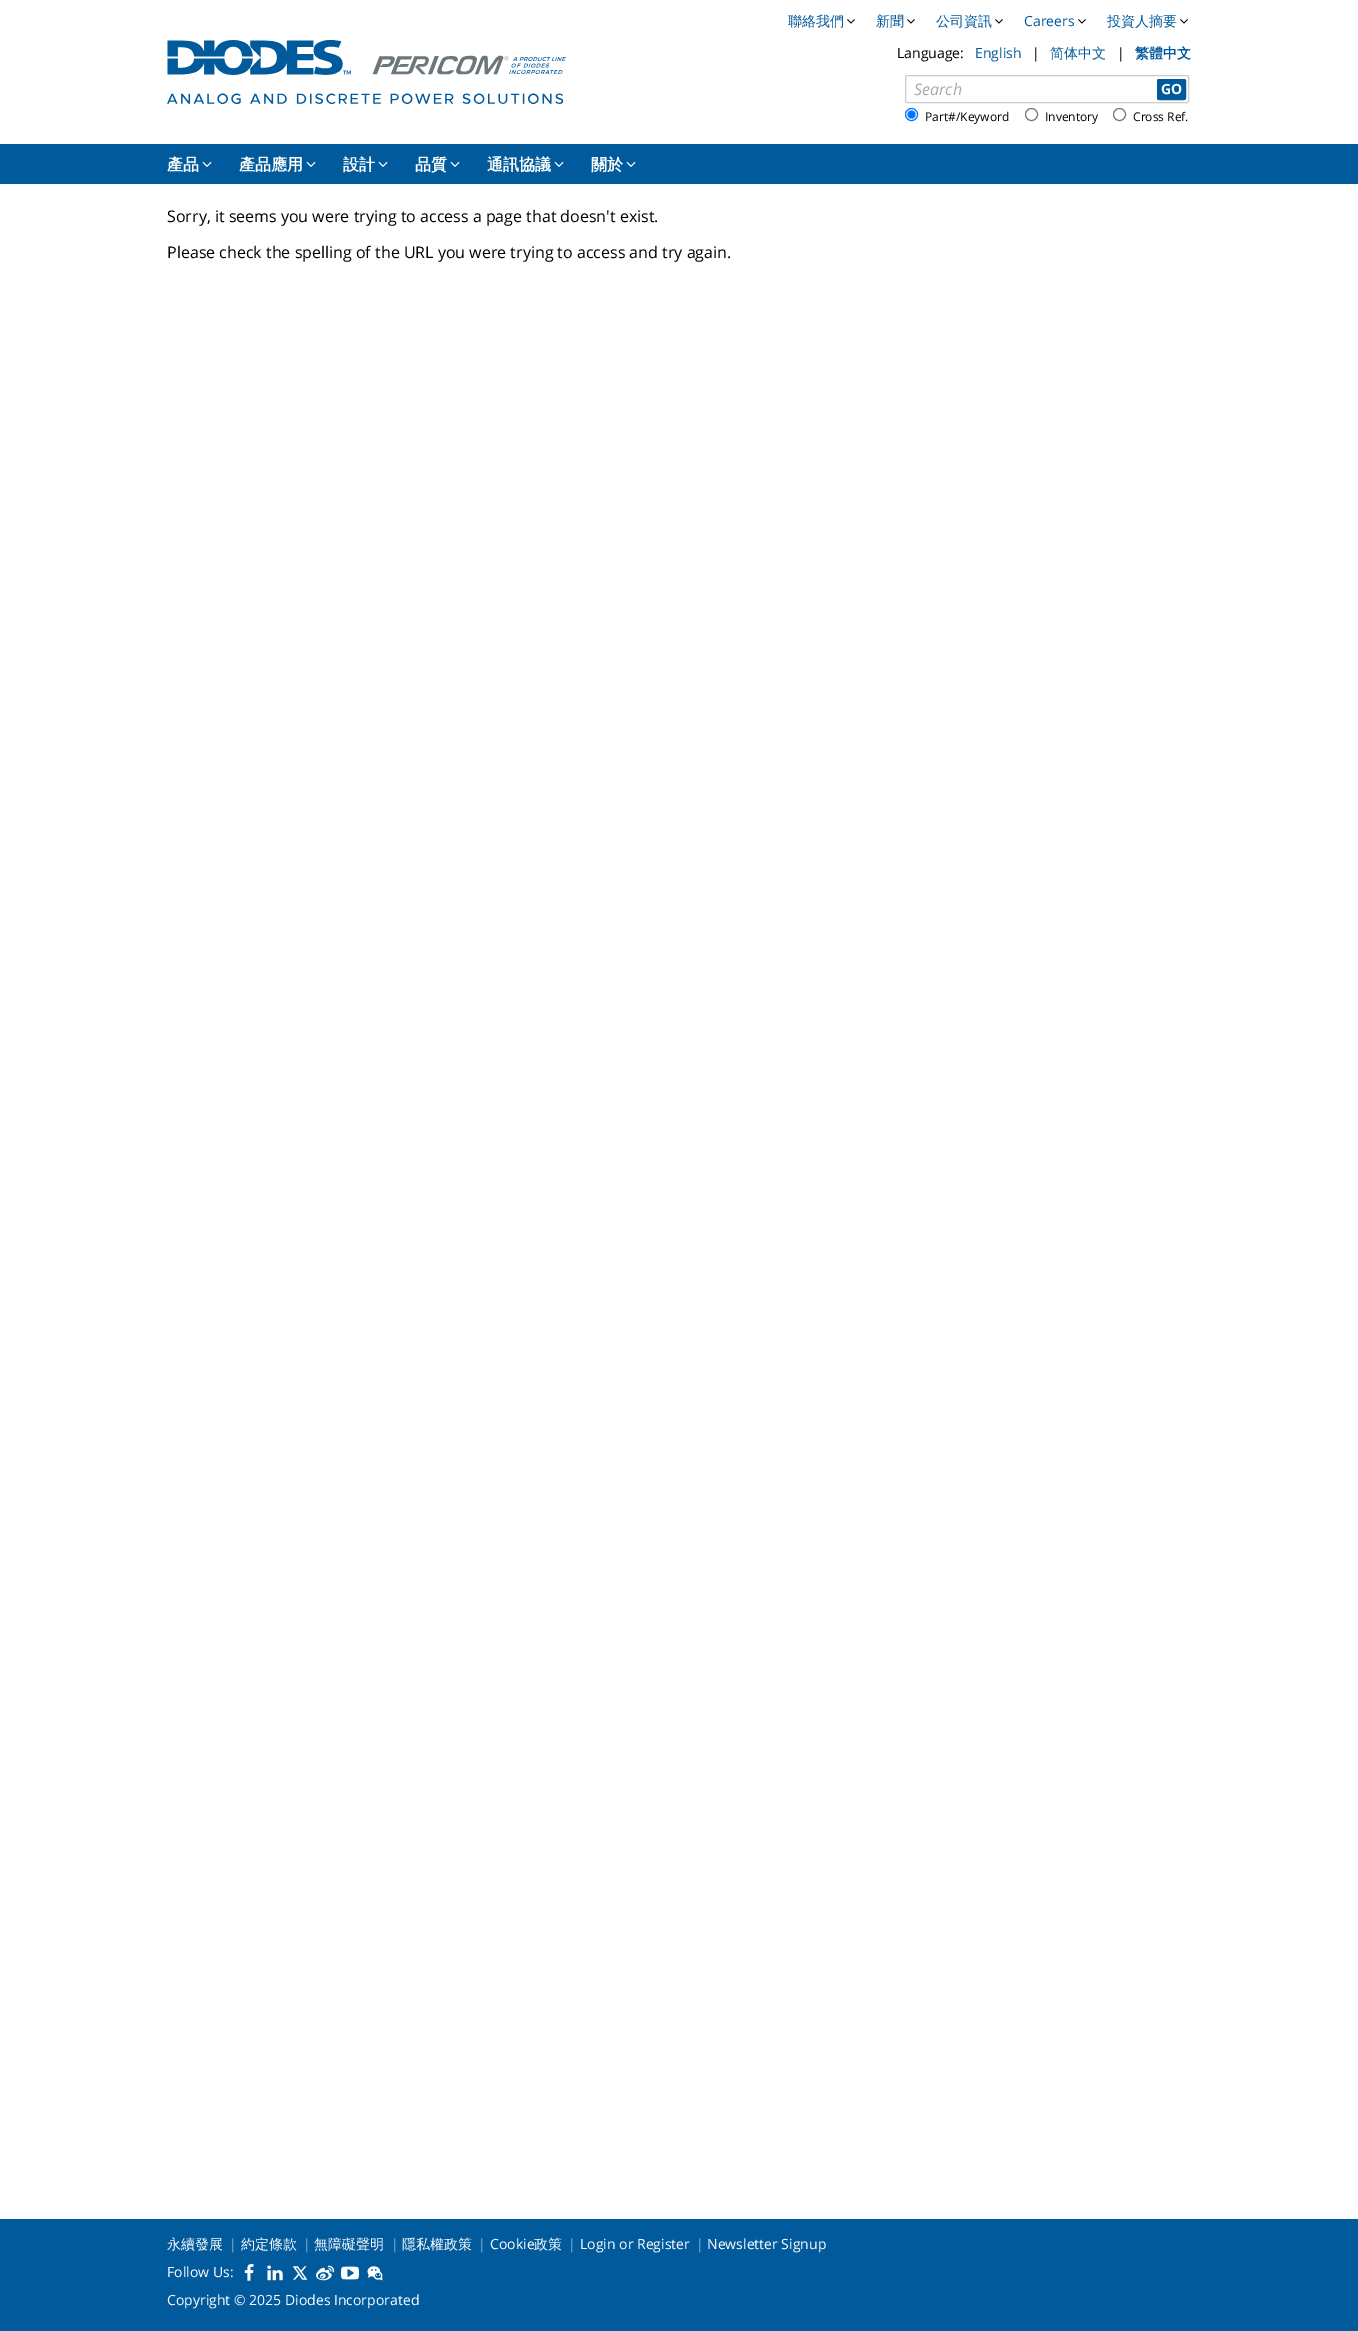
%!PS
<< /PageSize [1358 2331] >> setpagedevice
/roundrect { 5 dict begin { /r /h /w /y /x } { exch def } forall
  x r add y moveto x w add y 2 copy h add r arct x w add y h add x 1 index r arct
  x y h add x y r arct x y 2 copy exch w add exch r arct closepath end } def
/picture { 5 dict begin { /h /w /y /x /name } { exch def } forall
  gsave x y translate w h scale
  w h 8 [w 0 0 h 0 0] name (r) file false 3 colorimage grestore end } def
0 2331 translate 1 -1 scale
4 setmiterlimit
1 setgray
0 0 1358 2331 rectfill
/WenQuanYiZenHei-Medium [14 0 0 -14 0 0] selectfont
0 0.353 0.612 setrgbcolor
788 26 moveto (聯絡我們) show
(img1.rgb) 847 19 8 5 picture
876 26 moveto (新聞) show
(img1.rgb) 907 19 8 5 picture
936 26 moveto (公司資訊) show
(img1.rgb) 995 19 8 5 picture
/OpenSans-Regular [14 0 0 -14 0 0] selectfont
1024 26 moveto (Careers) show
(img1.rgb) 1078 19 8 5 picture
/WenQuanYiZenHei-Medium [14 0 0 -14 0 0] selectfont
1107 26 moveto (投資人摘要) show
(img1.rgb) 1180 19 8 5 picture
/OpenSans-Regular [14 0 0 -14 0 0] selectfont
0 setgray
897 58 moveto (Language:) show
0 0.353 0.612 setrgbcolor
975 58 moveto (English) show
0 setgray
1032 58 moveto (|) show
/WenQuanYiZenHei-Medium [14 0 0 -14 0 0] selectfont
0 0.353 0.612 setrgbcolor
1050 58 moveto (简体中文) show
/OpenSans-Regular [14 0 0 -14 0 0] selectfont
0 setgray
1117 58 moveto (|) show
/WenQuanYiZenHei-Bold [14 0 0 -14 0 0] selectfont
0 0.353 0.612 setrgbcolor
1135 58 moveto (繁體中文) show
0.8 setgray
905.5 75.5 283 27 1.5 roundrect stroke
/OpenSans-Italic [16 0 0 -16 0 0] selectfont
0.667 setgray
914 95 moveto (Search) show
0 0.459 1 setrgbcolor
newpath 911.5 114.5 6 0 360 arc closepath stroke
newpath 911.5 114.5 4 0 360 arc closepath fill
/OpenSans-Regular [12 0 0 -12 0 0] selectfont
0 setgray
925 121 moveto (Part#/Keyword) show
0.463 setgray
newpath 1031.5 114.5 6 0 360 arc closepath stroke
0 setgray
1045 121 moveto (Inventory) show
0.463 setgray
newpath 1119.5 114.5 6 0 360 arc closepath stroke
0 setgray
1133 121 moveto (Cross Ref.) show
0 0.353 0.612 setrgbcolor
1157.5 79.5 28 20 1.5 roundrect gsave fill grestore
stroke
/OpenSans-Bold [14 0 0 -14 0 0] selectfont
1 setgray
1161 94 moveto (GO) show
0 0.353 0.612 setrgbcolor
0 144 1358 40 rectfill
/WenQuanYiZenHei-Bold [16 0 0 -16 0 0] selectfont
1 setgray
167 170 moveto (產品) show
(img2.rgb) 202 161 10 6 picture
239 170 moveto (產品應用) show
(img2.rgb) 306 161 10 6 picture
343 170 moveto (設計) show
(img2.rgb) 378 161 10 6 picture
415 170 moveto (品質) show
(img2.rgb) 450 161 10 6 picture
487 170 moveto (通訊協議) show
(img2.rgb) 554 161 10 6 picture
591 170 moveto (關於) show
(img2.rgb) 626 161 10 6 picture
(img3.rgb) 167 40 399 64 picture
/OpenSans-Regular [16 0 0 -16 0 0] selectfont
0 setgray
167 222 moveto (Sorry, it seems you were trying to access a page that doesn't exist.) show
167 258 moveto (Please check the spelling of the URL you were trying to access and try again.) show
0 0.353 0.612 setrgbcolor
0 2219 1358 112 rectfill
/WenQuanYiZenHei-Medium [14 0 0 -14 0 0] selectfont
1 setgray
167 2249 moveto (永續發展) show
/OpenSans-Regular [14 0 0 -14 0 0] selectfont
0.502 0.678 0.808 setrgbcolor
229 2249 moveto (|) show
/WenQuanYiZenHei-Medium [14 0 0 -14 0 0] selectfont
1 setgray
241 2249 moveto (約定條款) show
/OpenSans-Regular [14 0 0 -14 0 0] selectfont
0.502 0.678 0.808 setrgbcolor
303 2249 moveto (|) show
/WenQuanYiZenHei-Medium [14 0 0 -14 0 0] selectfont
1 setgray
314 2249 moveto (無障礙聲明) show
/OpenSans-Regular [14 0 0 -14 0 0] selectfont
0.502 0.678 0.808 setrgbcolor
391 2249 moveto (|) show
/WenQuanYiZenHei-Medium [14 0 0 -14 0 0] selectfont
1 setgray
402 2249 moveto (隱私權政策) show
/OpenSans-Regular [14 0 0 -14 0 0] selectfont
0.502 0.678 0.808 setrgbcolor
478 2249 moveto (|) show
1 setgray
490 2249 moveto (Cookie) show
/WenQuanYiZenHei-Medium [14 0 0 -14 0 0] selectfont
534 2249 moveto (政策) show
/OpenSans-Regular [14 0 0 -14 0 0] selectfont
0.502 0.678 0.808 setrgbcolor
568 2249 moveto (|) show
1 setgray
580 2249 moveto (Login or Register) show
0.502 0.678 0.808 setrgbcolor
696 2249 moveto (|) show
1 setgray
707 2249 moveto (Newsletter Signup) show
167 2277 moveto (Follow Us:) show
(img4.rgb) 244 2264 10 17 picture
(img5.rgb) 267 2265 16 16 picture
(img6.rgb) 292 2266 16 14 picture
(img7.rgb) 316 2265 18 16 picture
(img8.rgb) 341 2266 18 14 picture
(img9.rgb) 367 2266 16 15 picture
167 2305 moveto (Copyright © 2025 Diodes Incorporated) show
showpage
